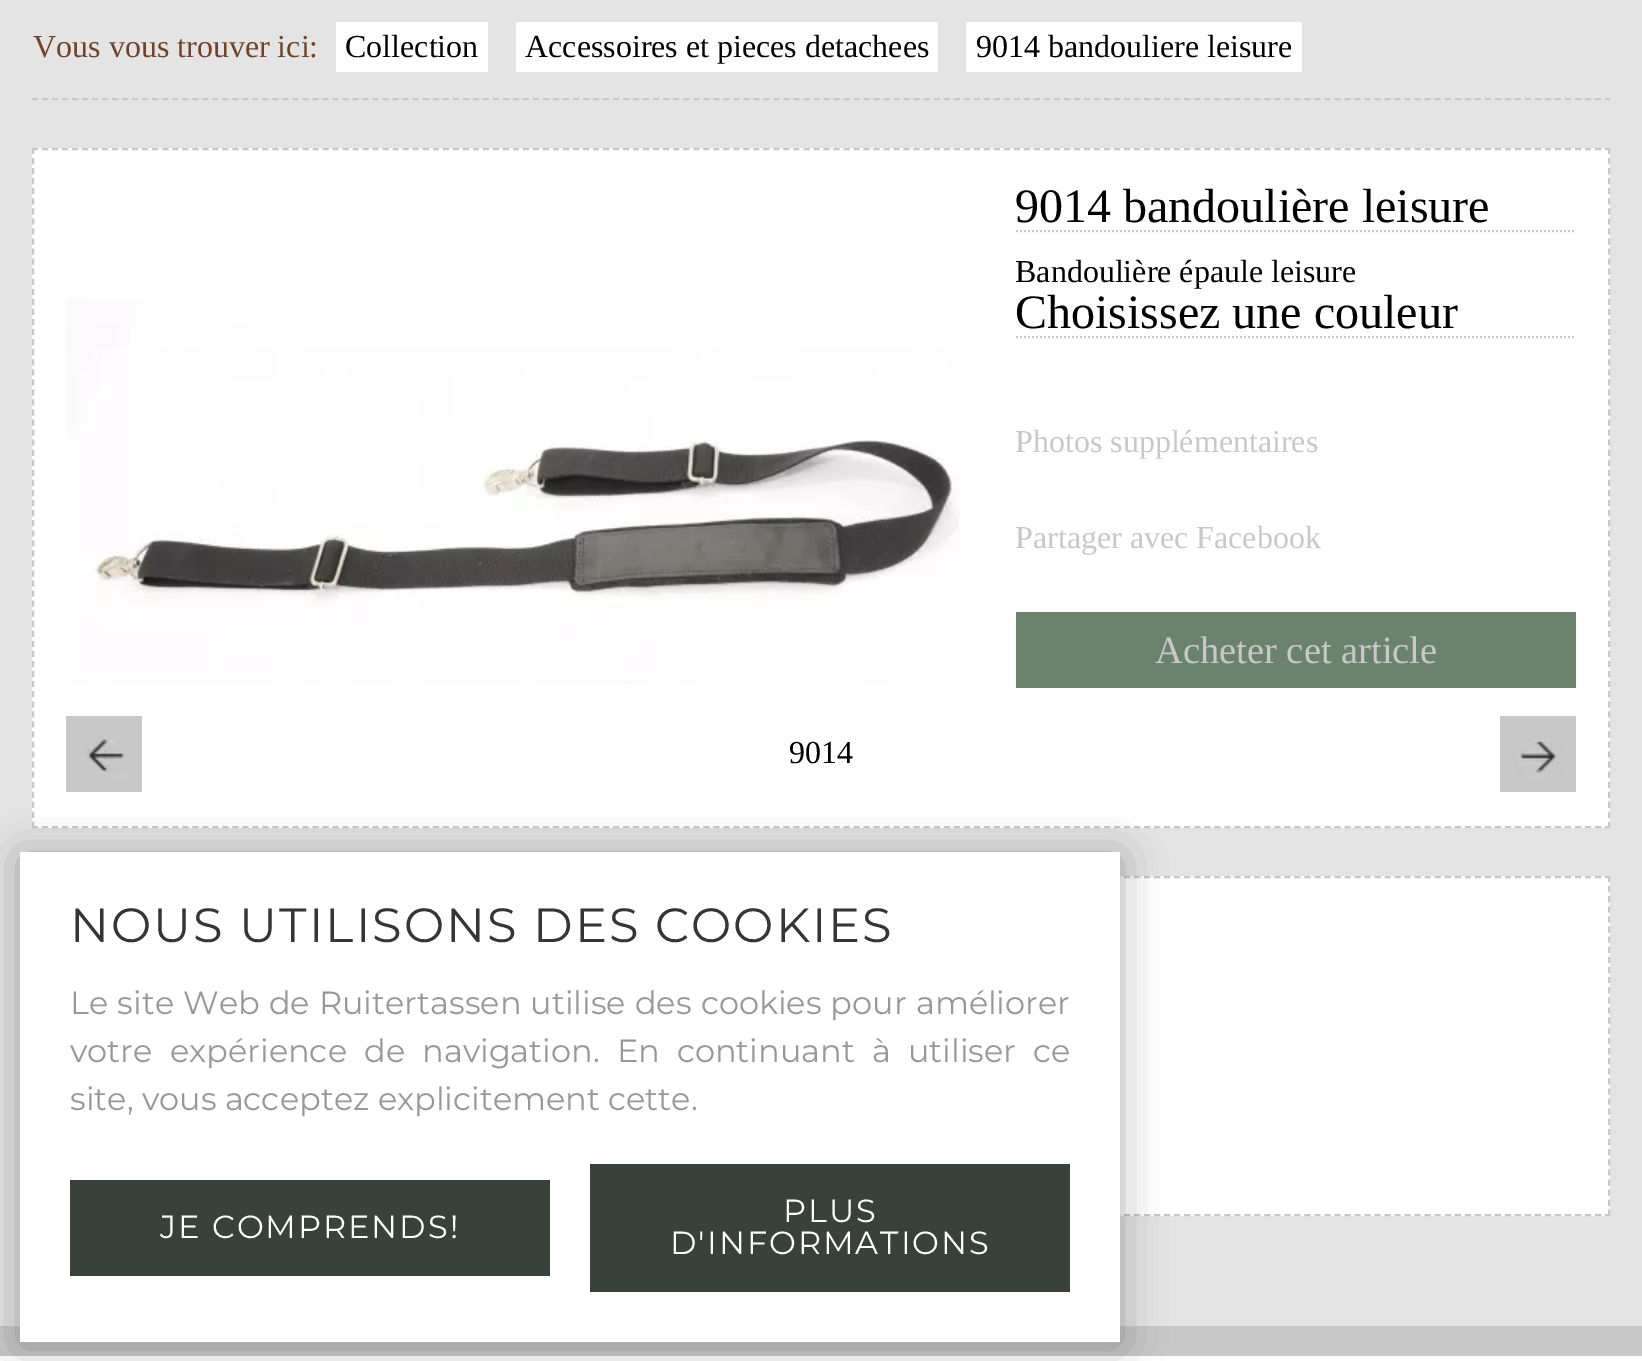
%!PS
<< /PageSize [1642 1361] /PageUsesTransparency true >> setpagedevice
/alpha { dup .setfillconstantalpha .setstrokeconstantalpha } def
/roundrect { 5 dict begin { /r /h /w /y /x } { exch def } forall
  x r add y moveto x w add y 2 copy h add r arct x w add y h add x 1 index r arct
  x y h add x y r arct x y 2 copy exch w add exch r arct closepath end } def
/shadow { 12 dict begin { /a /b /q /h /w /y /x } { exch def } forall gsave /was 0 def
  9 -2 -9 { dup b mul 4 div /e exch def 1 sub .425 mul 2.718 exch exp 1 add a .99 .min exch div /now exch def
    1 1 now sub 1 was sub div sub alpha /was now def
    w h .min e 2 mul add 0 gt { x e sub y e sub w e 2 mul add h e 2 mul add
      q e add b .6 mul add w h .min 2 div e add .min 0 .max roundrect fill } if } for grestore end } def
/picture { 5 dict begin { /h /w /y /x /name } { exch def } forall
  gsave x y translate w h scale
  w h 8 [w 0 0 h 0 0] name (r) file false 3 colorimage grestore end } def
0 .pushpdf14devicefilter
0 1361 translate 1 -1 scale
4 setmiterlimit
0.894 setgray
0 0 1642 1361 rectfill
0.788 setgray
2 setlinewidth
[6 4.02] 0 setdash
newpath 32 99 moveto 1610 99 lineto stroke
/LiberationSerif-Regular [32 0 0 -32 0 0] selectfont
0.439 0.263 0.161 setrgbcolor
33 57 moveto (Vous vous trouver ici:) show
1 setgray
336 22 152 50 rectfill
0 setgray
345 57 moveto (Collection) show
1 setgray
516 22 422 50 rectfill
0 setgray
525 57 moveto (Accessoires et pieces detachees) show
1 setgray
966 22 336 50 rectfill
0 setgray
976 57 moveto (9014 bandouliere leisure) show
1 setgray
32 148 1578 680 rectfill
0.784 setgray
newpath 32 149 moveto 1610 149 lineto stroke
[6 4.06] 0 setdash
newpath 1609 148 moveto 1609 828 lineto stroke
[6 4.02] 0 setdash
newpath 32 827 moveto 1610 827 lineto stroke
[6 4.06] 0 setdash
newpath 33 148 moveto 33 828 lineto stroke
(img1.rgb) 66 299 895 385 picture
[2 2] 0 setdash
newpath 1016 231 moveto 1576 231 lineto stroke
/LiberationSerif-Regular [48 0 0 -48 0 0] selectfont
0 setgray
1015 222 moveto (9014 bandoulière leisure) show
/LiberationSerif-Regular [32 0 0 -32 0 0] selectfont
1015 282 moveto (Bandoulière épaule leisure) show
0.784 setgray
newpath 1016 337 moveto 1576 337 lineto stroke
/LiberationSerif-Regular [48 0 0 -48 0 0] selectfont
0 setgray
1015 328 moveto (Choisissez une couleur) show
/LiberationSerif-Regular [32 0 0 -32 0 0] selectfont
0.784 setgray
1015 452 moveto (Photos supplémentaires) show
1015 548 moveto (Partager avec Facebook) show
0.412 0.514 0.424 setrgbcolor
1016 612 560 76 rectfill
/LiberationSerif-Regular [38.5 0 0 -38.5 0 0] selectfont
0.784 setgray
1155 663 moveto (Acheter cet article) show
(img2.rgb) 66 716 76 76 picture
/LiberationSerif-Regular [32 0 0 -32 0 0] selectfont
0 setgray
789 763 moveto (9014) show
(img3.rgb) 1500 716 76 76 picture
1 setgray
1120 876 490 340 rectfill
0.784 setgray
[6 4.02] 0 setdash
newpath 32 877 moveto 1610 877 lineto stroke
[6 4.12] 0 setdash
newpath 1609 876 moveto 1609 1216 lineto stroke
[6 4.02] 0 setdash
newpath 32 1215 moveto 1610 1215 lineto stroke
1 setgray
0 1356 1642 5 rectfill
0.784 setgray
0 1326 1642 30 rectfill
0.239 setgray
20 856 1100 490 0 22 0.41 shadow
1 setgray
20 852 1100 490 rectfill
/Montserrat-Regular [48 0 0 -48 0 0] selectfont
0.208 setgray
70 942 moveto 2 0 (NOUS UTILISONS DES COOKIES) ashow
/Montserrat-Regular [32 0 0 -32 0 0] selectfont
0.592 setgray
70 1014 moveto 0.75 0 32 (Le site Web de Ruitertassen utilise des cookies pour améliorer) widthshow
70 1062 moveto 8.75 0 32 (votre expérience de navigation. En continuant à utiliser ce) widthshow
70 1110 moveto (site, vous acceptez explicitement cette.) show
0.224 0.259 0.227 setrgbcolor
70 1180 480 96 rectfill
1 setgray
160 1238 moveto 2 0 (JE COMPRENDS!) ashow
0.224 0.259 0.227 setrgbcolor
590 1164 480 128 rectfill
1 setgray
783 1222 moveto 2 0 (PLUS) ashow
670 1254 moveto 2 0 (D'INFORMATIONS) ashow
.poppdf14devicefilter showpage
